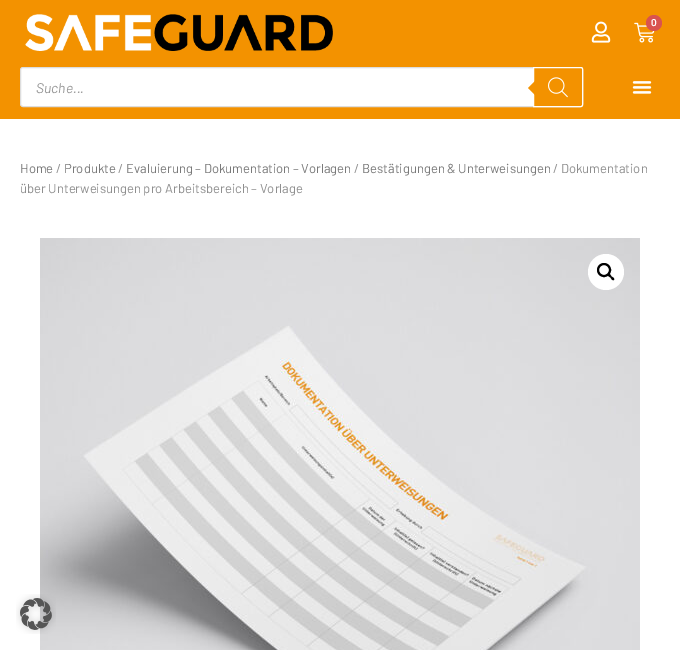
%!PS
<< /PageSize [680 650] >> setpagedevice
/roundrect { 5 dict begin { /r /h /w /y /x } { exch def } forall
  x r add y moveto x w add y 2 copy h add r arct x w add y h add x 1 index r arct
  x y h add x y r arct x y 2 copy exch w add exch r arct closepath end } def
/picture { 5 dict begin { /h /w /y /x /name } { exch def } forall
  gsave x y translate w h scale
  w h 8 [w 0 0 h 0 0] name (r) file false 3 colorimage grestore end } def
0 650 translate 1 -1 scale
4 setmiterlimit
1 setgray
0 0 680 650 rectfill
0.953 0.573 0 setrgbcolor
0 0 680 119 rectfill
(img1.rgb) 25 14 308 37 picture
(img2.rgb) 591 21 20 22 picture
(img3.rgb) 634 22 21 21 picture
0.851 0.325 0.31 setrgbcolor
newpath 654 23 8 0 360 arc closepath fill
/Barlow-SemiBold [10 0 0 -10 0 0] selectfont
1 setgray
651 26 moveto (0) show
20.5 67.5 562 39 2.5 roundrect gsave fill grestore
0.867 setgray
stroke
/Barlow-Italic [14 0 0 -14 0 0] selectfont
0.6 setgray
36 93 moveto (Suche...) show
0.953 0.573 0 setrgbcolor
newpath 533.5 67.5 moveto 581 67.5 lineto 582 67.5 582.5 68 582.5 69 curveto 582.5 105 lineto 582.5 106 582 106.5 581 106.5 curveto 533.5 106.5 lineto closepath gsave fill grestore
1 setgray
stroke
0.953 0.573 0 setrgbcolor
newpath 536 80 moveto 536 96 lineto 528 88 lineto closepath fill
(img4.rgb) 548 77 20 21 picture
(img5.rgb) 632 81 20 13 picture
/Barlow-Regular [13 0 0 -13 0 0] selectfont
0.478 setgray
20 173 moveto (Home) show
0.561 setgray
56 173 moveto (/) show
0.478 setgray
64 173 moveto (Produkte) show
0.561 setgray
118 173 moveto (/) show
0.478 setgray
126 173 moveto (Evaluierung – Dokumentation – Vorlagen) show
0.561 setgray
354 173 moveto (/) show
0.478 setgray
362 173 moveto (Bestätigungen & Unterweisungen) show
0.561 setgray
553 173 moveto (/ Dokumentation) show
20 193 moveto (über Unterweisungen pro Arbeitsbereich – Vorlage) show
(img6.rgb) 40 238 600 412 picture
1 setgray
newpath 606 272 18 0 360 arc closepath fill
0 setgray
2 setlinewidth
newpath 604 270 6 0 360 arc closepath stroke
newpath 608 274 moveto 609.5 273 611 275.5 611.5 276.5 curveto 612.5 277 615 278.5 614 280 curveto 612.5 281 611 278.5 610.5 277.5 curveto 609.5 277 607 275.5 608 274 curveto closepath fill
(img7.rgb) 16 594 40 40 picture
showpage
